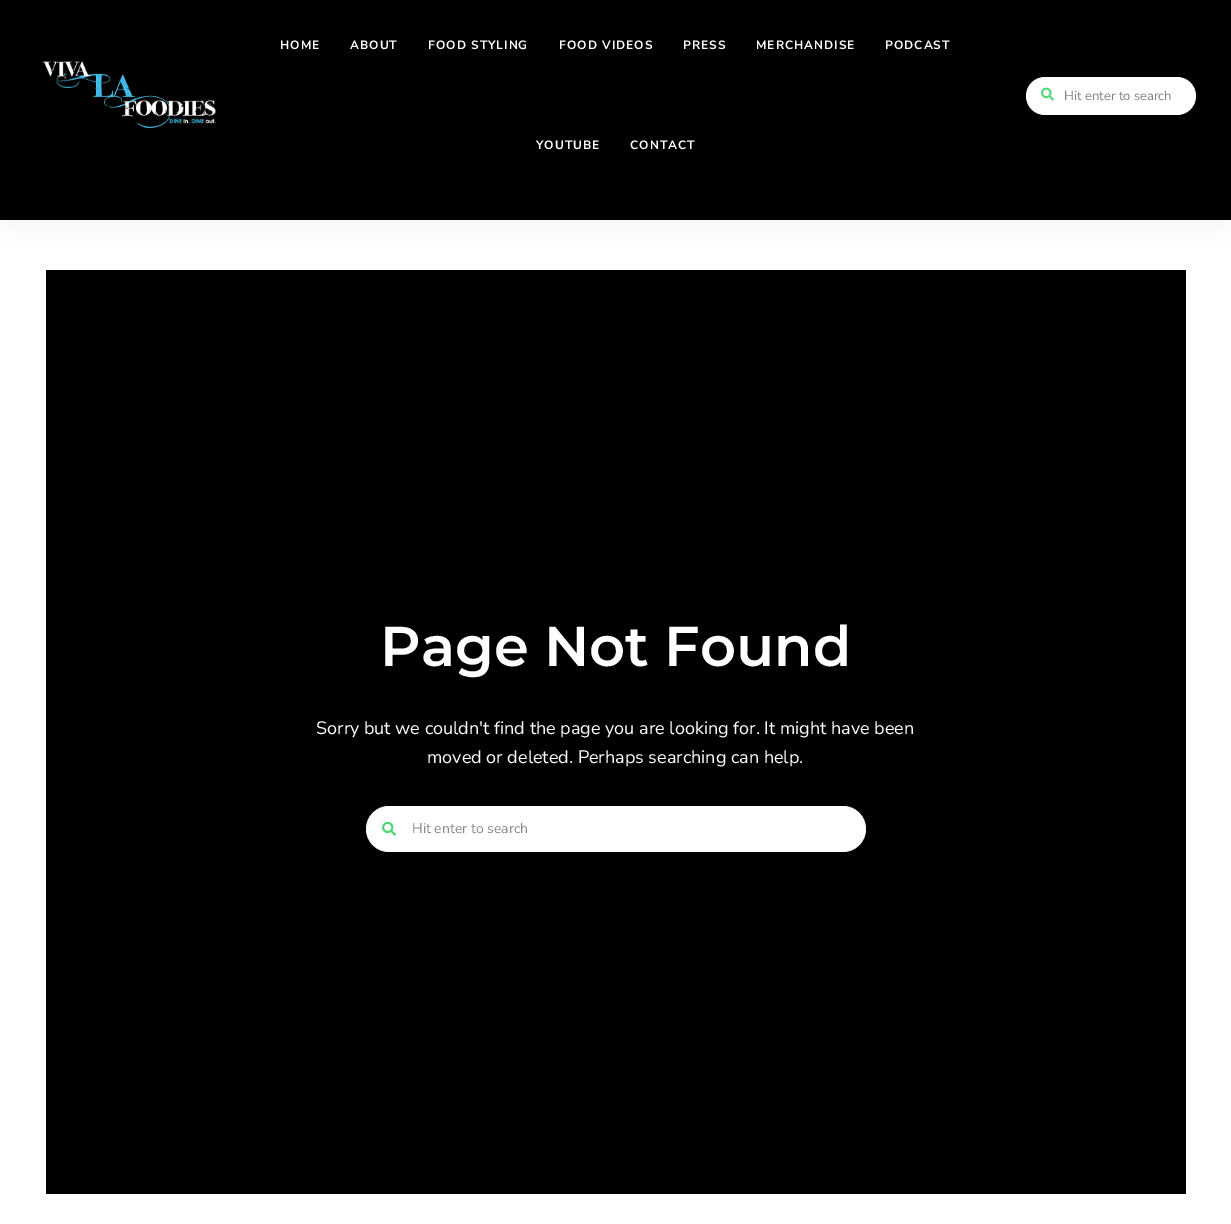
%!PS
<< /PageSize [1231 1224] /PageUsesTransparency true >> setpagedevice
/alpha { dup .setfillconstantalpha .setstrokeconstantalpha } def
/roundrect { 5 dict begin { /r /h /w /y /x } { exch def } forall
  x r add y moveto x w add y 2 copy h add r arct x w add y h add x 1 index r arct
  x y h add x y r arct x y 2 copy exch w add exch r arct closepath end } def
/shadow { 12 dict begin { /a /b /q /h /w /y /x } { exch def } forall gsave /was 0 def
  9 -2 -9 { dup b mul 4 div /e exch def 1 sub .425 mul 2.718 exch exp 1 add a .99 .min exch div /now exch def
    1 1 now sub 1 was sub div sub alpha /was now def
    w h .min e 2 mul add 0 gt { x e sub y e sub w e 2 mul add h e 2 mul add
      q e add b .6 mul add w h .min 2 div e add .min 0 .max roundrect fill } if } for grestore end } def
/picture { 5 dict begin { /h /w /y /x /name } { exch def } forall
  gsave x y translate w h scale
  w h 8 [w 0 0 h 0 0] name (r) file false 3 colorimage grestore end } def
0 .pushpdf14devicefilter
0 1224 translate 1 -1 scale
4 setmiterlimit
1 setgray
0 0 1231 1224 rectfill
0 setgray
6 -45 1219 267 0 15 0.05 shadow
0 0 1231 220 rectfill
(img1.rgb) 42 61 174 68 picture
/NunitoSans-Bold [12 0 0 -12 0 0] selectfont
1 setgray
280 49 moveto 1 0 (HOME) ashow
350 49 moveto 1 0 (ABOUT) ashow
428 49 moveto 1 0 (FOOD STYLING) ashow
559 49 moveto 1 0 (FOOD VIDEOS) ashow
683 49 moveto 1 0 (PRESS) ashow
756 49 moveto 1 0 (MERCHANDISE) ashow
885 49 moveto 1 0 (PODCAST) ashow
536 149 moveto 1 0 (YOUTUBE) ashow
630 149 moveto 1 0 (CONTACT) ashow
1026 77 170 38 19 roundrect fill
(img2.rgb) 1041 87 13 14 picture
/NunitoSans-Regular [13 0 0 -13 0 0] selectfont
0.502 setgray
1064 100 moveto (Hit enter to search) show
0 setgray
46 270 1140 924 rectfill
/Montserrat-SemiBold [56 0 0 -56 0 0] selectfont
1 setgray
380 666 moveto (Page Not Found) show
/NunitoSans-Regular [18 0 0 -18 0 0] selectfont
316 734 moveto (Sorry but we couldn't find the page you are looking for. It might have been) show
427 763 moveto (moved or deleted. Perhaps searching can help.) show
366 806 500 46 23 roundrect fill
(img3.rgb) 382 821 14 15 picture
/NunitoSans-Regular [14 0 0 -14 0 0] selectfont
0.533 setgray
412 833 moveto (Hit enter to search) show
.poppdf14devicefilter showpage
